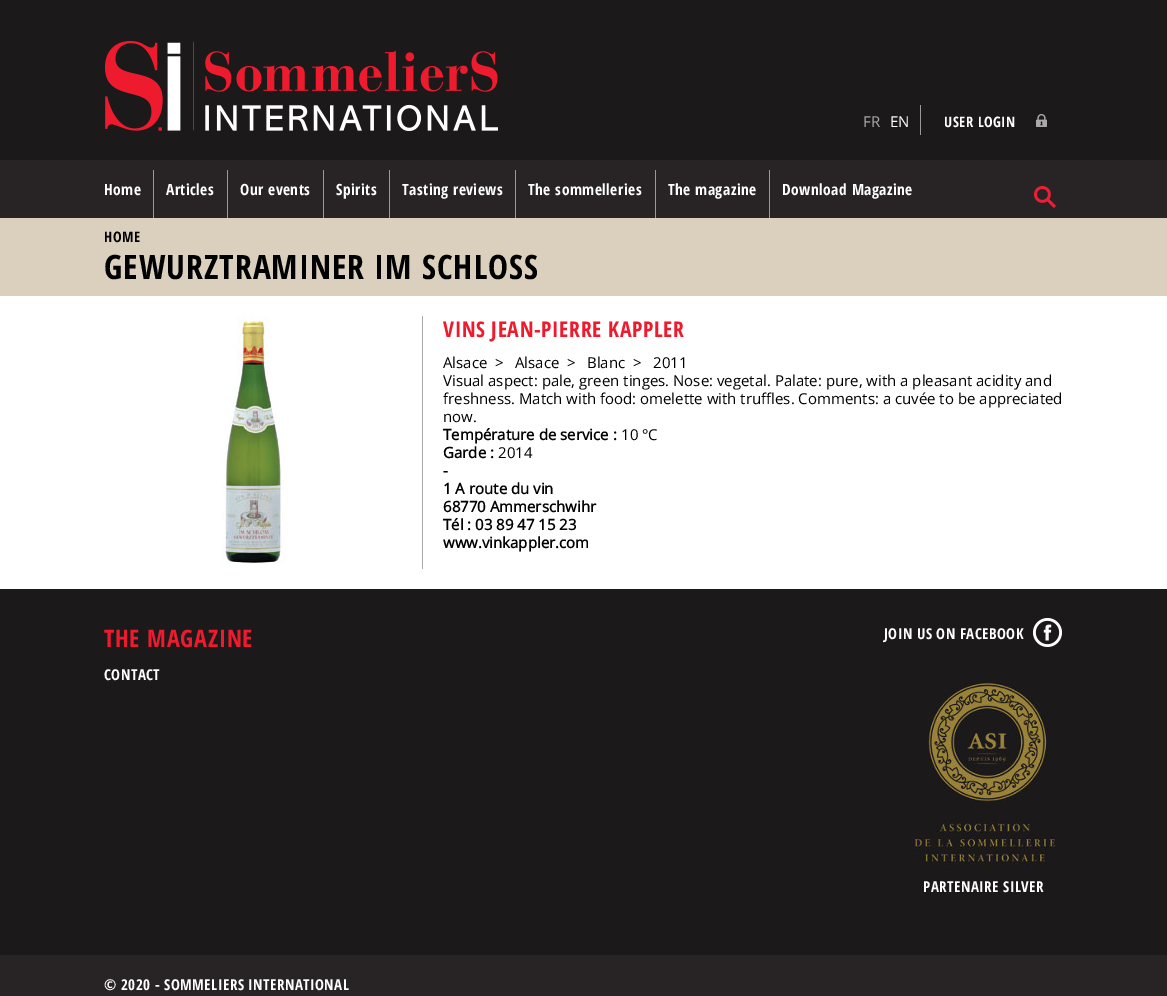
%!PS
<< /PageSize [1167 996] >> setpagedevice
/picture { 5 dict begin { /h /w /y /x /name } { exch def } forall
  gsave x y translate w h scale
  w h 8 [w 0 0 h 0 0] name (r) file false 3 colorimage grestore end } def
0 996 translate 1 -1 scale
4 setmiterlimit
1 setgray
0 0 1167 996 rectfill
0.106 0.098 0.102 setrgbcolor
0 0 1167 160 rectfill
(img1.rgb) 105 41 393 90 picture
/OpenSans-Regular [15 0 0 -15 0 0] selectfont
0.667 setgray
863 127 moveto (FR) show
1 setgray
890 127 moveto (EN) show
(img2.rgb) 1036 114 11 13 picture
0.6 setgray
920 105 1 30 rectfill
/OpenSansCondensed-Bold [14.5 0 0 -14.5 0 0] selectfont
1 setgray
944 127 moveto 0.5 0 (USER LOGIN) ashow
0.157 0.141 0.145 setrgbcolor
0 160 1167 58 rectfill
0.6 setgray
153 170 1 48 rectfill
/OpenSansCondensed-Bold [15.5 0 0 -15.5 0 0] selectfont
1 setgray
104 195 moveto 0.45 0 (Home) ashow
0.6 setgray
227 170 1 48 rectfill
1 setgray
166 195 moveto 0.45 0 (Articles) ashow
0.6 setgray
323 170 1 48 rectfill
1 setgray
240 195 moveto 0.45 0 (Our events) ashow
0.6 setgray
389 170 1 48 rectfill
1 setgray
336 195 moveto 0.45 0 (Spirits) ashow
0.6 setgray
515 170 1 48 rectfill
1 setgray
402 195 moveto 0.45 0 (Tasting reviews) ashow
0.6 setgray
655 170 1 48 rectfill
1 setgray
528 195 moveto 0.45 0 (The sommelleries) ashow
0.6 setgray
769 170 1 48 rectfill
1 setgray
668 195 moveto 0.45 0 (The magazine) ashow
782 195 moveto 0.45 0 (Download Magazine) ashow
(img3.rgb) 1034 186 22 22 picture
0.859 0.816 0.745 setrgbcolor
0 218 1167 78 rectfill
/OpenSansCondensed-Bold [14.5 0 0 -14.5 0 0] selectfont
0 setgray
104 242 moveto 0.5 0 (HOME) ashow
/OpenSansCondensed-Bold [33.6 0 0 -33.6 0 0] selectfont
104 279 moveto 1 0 (GEWURZTRAMINER IM SCHLOSS) ashow
0.667 setgray
422 316 1 253 rectfill
(img4.rgb) 221 316 64 248 picture
/OpenSansCondensed-Bold [21.6 0 0 -21.6 0 0] selectfont
0.933 0.106 0.18 setrgbcolor
443 337 moveto 0.65 0 (VINS JEAN-PIERRE KAPPLER) ashow
/OpenSans-Regular [15 0 0 -15 0 0] selectfont
0 setgray
443 368 moveto (Alsace) show
495 368 moveto (>) show
515 368 moveto (Alsace) show
567 368 moveto (>) show
587 368 moveto (Blanc) show
633 368 moveto (>) show
653 368 moveto (2011) show
443 386 moveto (Visual aspect: pale, green tinges. Nose: vegetal. Palate: pure, with a pleasant acidity and) show
443 404 moveto (freshness. Match with food: omelette with truffles. Comments: a cuvée to be appreciated) show
443 422 moveto (now.) show
/OpenSans-Bold [15 0 0 -15 0 0] selectfont
443 440 moveto (Température de service :) show
/OpenSans-Regular [15 0 0 -15 0 0] selectfont
621 440 moveto (10 °C) show
/OpenSans-Bold [15 0 0 -15 0 0] selectfont
443 458 moveto (Garde :) show
/OpenSans-Regular [15 0 0 -15 0 0] selectfont
498 458 moveto (2014) show
/OpenSans-Bold [15 0 0 -15 0 0] selectfont
443 476 moveto (-) show
443 494 moveto (1 A route du vin) show
443 512 moveto (68770 Ammerschwihr) show
443 530 moveto (Tél : 03 89 47 15 23) show
443 548 moveto (www.vinkappler.com) show
0.106 0.098 0.102 setrgbcolor
0 589 1167 366 rectfill
/OpenSansCondensed-Bold [24 0 0 -24 0 0] selectfont
0.933 0.106 0.18 setrgbcolor
104 647 moveto 0.75 0 (THE MAGAZINE) ashow
/OpenSansCondensed-Bold [15 0 0 -15 0 0] selectfont
1 setgray
104 680 moveto 0.45 0 (CONTACT) ashow
884 639 moveto 0.45 0 (JOIN US ON FACEBOOK) ashow
(img5.rgb) 1033 618 29 29 picture
(img6.rgb) 912 683 144 184 picture
923 892 moveto 0.45 0 (PARTENAIRE SILVER) ashow
0.157 0.141 0.145 setrgbcolor
0 955 1167 41 rectfill
1 setgray
104 990 moveto 0.45 0 (© 2020 - SOMMELIERS INTERNATIONAL) ashow
showpage
